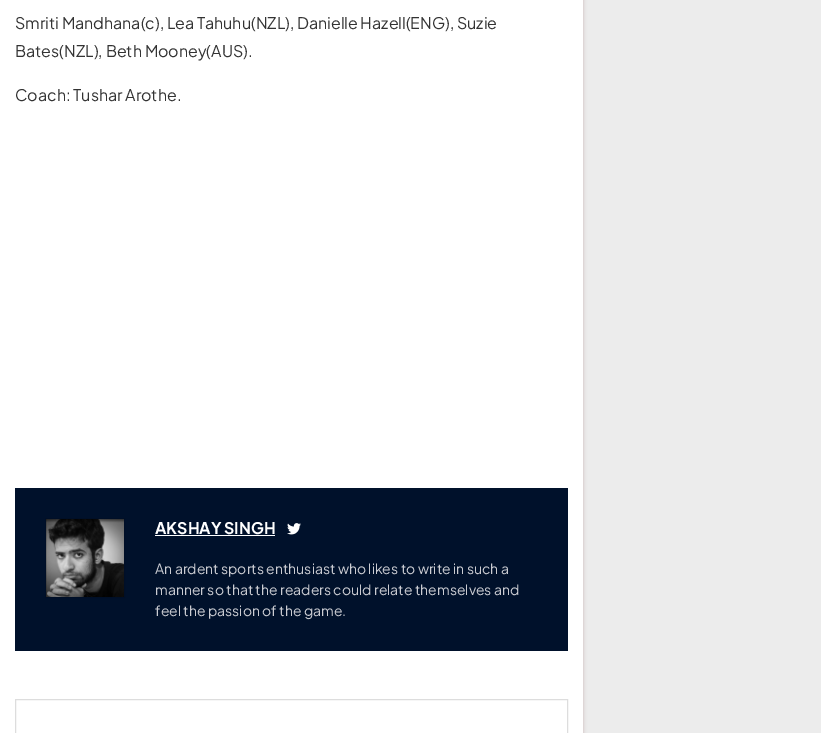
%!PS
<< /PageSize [821 733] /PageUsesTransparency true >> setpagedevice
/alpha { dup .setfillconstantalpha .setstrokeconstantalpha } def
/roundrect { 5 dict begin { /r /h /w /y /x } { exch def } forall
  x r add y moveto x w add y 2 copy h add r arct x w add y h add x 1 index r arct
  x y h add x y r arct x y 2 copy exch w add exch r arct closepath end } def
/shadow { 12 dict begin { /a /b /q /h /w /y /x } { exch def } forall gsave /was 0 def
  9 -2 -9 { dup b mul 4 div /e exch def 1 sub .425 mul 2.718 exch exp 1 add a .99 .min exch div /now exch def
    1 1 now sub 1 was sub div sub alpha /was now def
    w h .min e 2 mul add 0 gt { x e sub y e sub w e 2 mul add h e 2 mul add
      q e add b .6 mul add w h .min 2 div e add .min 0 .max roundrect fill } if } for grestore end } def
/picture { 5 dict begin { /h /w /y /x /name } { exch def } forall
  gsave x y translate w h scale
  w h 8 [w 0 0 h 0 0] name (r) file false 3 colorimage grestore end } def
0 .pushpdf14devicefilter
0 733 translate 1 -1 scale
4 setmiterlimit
0.925 setgray
0 0 821 733 rectfill
0.788 0.718 0.718 setrgbcolor
0 -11 583 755 5 2 1 shadow
1 setgray
0 0 583 733 rectfill
/PlusJakartaSans-Regular [16 0 0 -16 0 0] selectfont
0.2 setgray
15 29 moveto (Smriti Mandhana\(c\), Lea Tahuhu\(NZL\), Danielle Hazell\(ENG\), Suzie) show
15 57 moveto (Bates\(NZL\), Beth Mooney\(AUS\).) show
15 101 moveto (Coach: Tushar Arothe.) show
0 0.067 0.169 setrgbcolor
15 488 553 163 rectfill
0 0.059 0.153 setrgbcolor
45.5 518.5 79 79 rectstroke
(img1.rgb) 46 519 78 78 picture
/PlusJakartaSans-Bold [16 0 0 -16 0 0] selectfont
1 setgray
155 534 moveto (AKSHAY SINGH) show
155 535 120 1 rectfill
(img2.rgb) 287 523 14 12 picture
/PlusJakartaSans-Regular [14 0 0 -14 0 0] selectfont
0.796 0.8 0.824 setrgbcolor
155 574 moveto (An ardent sports enthusiast who likes to write in such a) show
155 595 moveto (manner so that the readers could relate themselves and) show
155 616 moveto (feel the passion of the game.) show
0.867 setgray
15.5 699.5 552 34 rectstroke
.poppdf14devicefilter showpage
